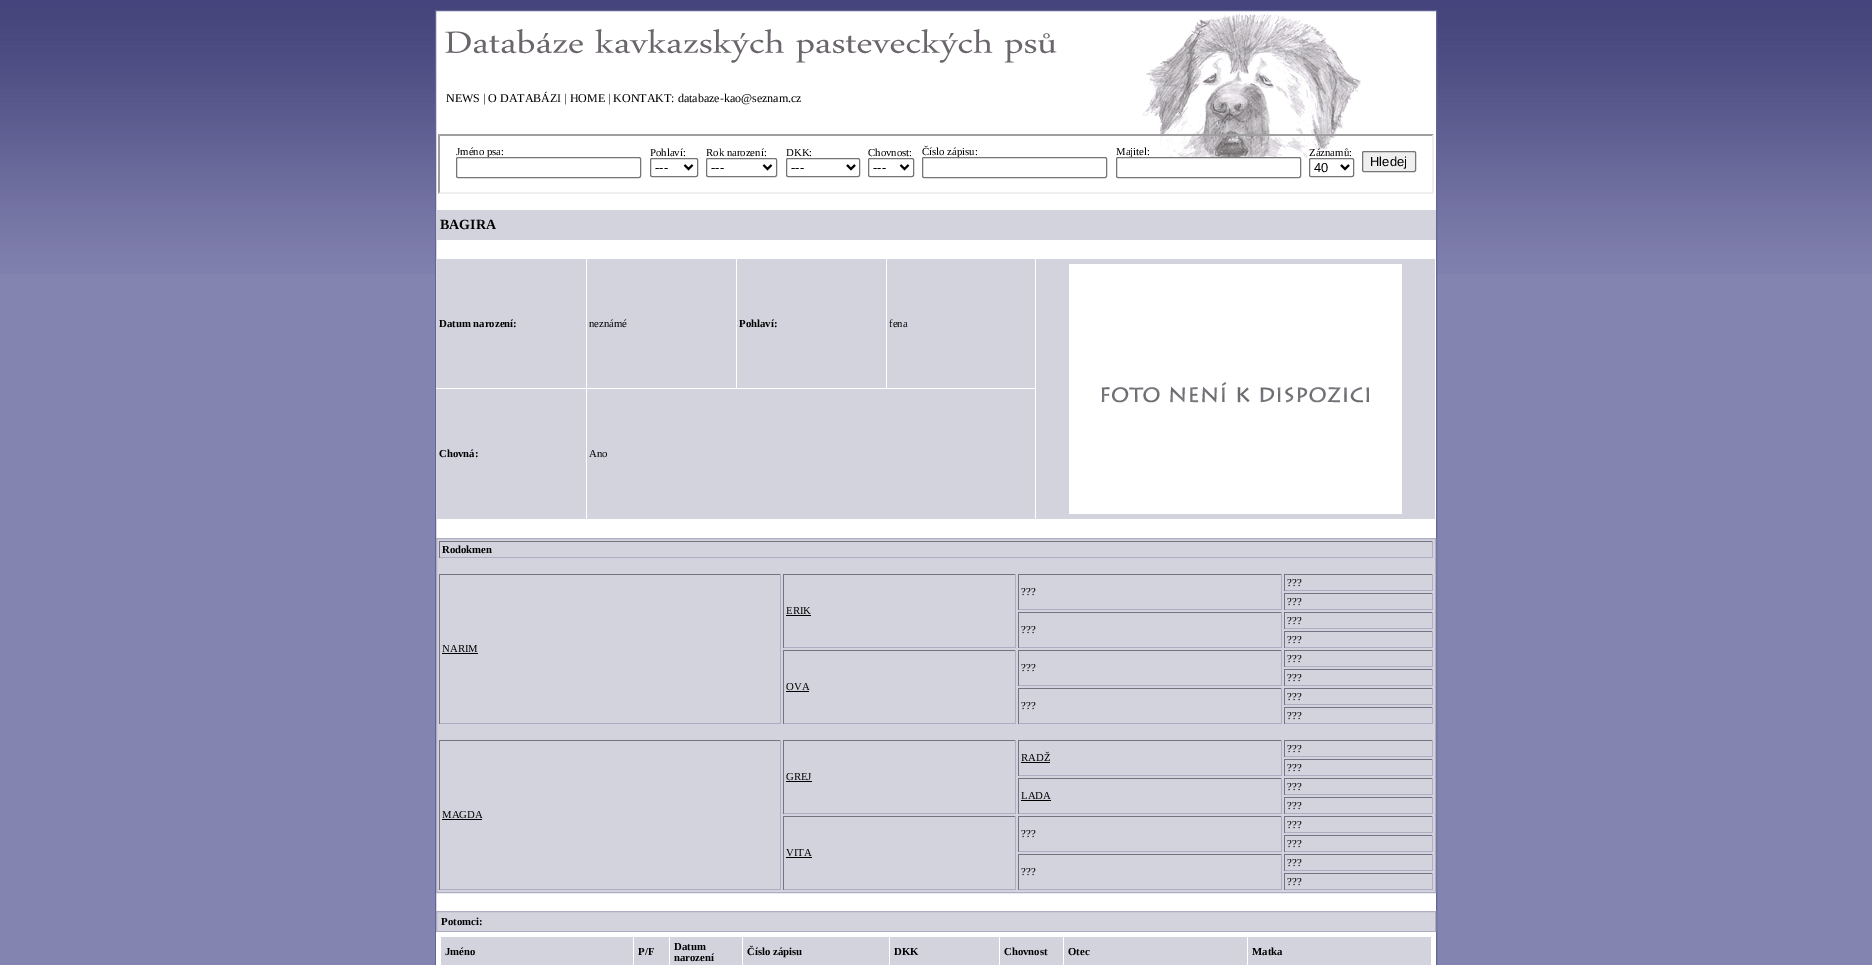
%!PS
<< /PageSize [1872 965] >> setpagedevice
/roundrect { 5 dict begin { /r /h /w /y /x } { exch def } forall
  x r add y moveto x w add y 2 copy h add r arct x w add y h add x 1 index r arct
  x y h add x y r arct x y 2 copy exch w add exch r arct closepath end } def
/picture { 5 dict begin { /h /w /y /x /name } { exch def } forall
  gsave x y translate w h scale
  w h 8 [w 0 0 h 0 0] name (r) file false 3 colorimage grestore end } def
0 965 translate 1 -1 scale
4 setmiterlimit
0.518 0.518 0.69 setrgbcolor
0 0 1872 965 rectfill
(img1.rgb) 0 0 1872 274 picture
1 setgray
436 11 1000 900 rectfill
(img2.rgb) 445 14 987 190 picture
0.396 0.392 0.596 setrgbcolor
435.5 10.5 1001 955 rectstroke
/LiberationSerif-Regular [12 0 0 -12 0 0] selectfont
0 setgray
446 102 moveto (NEWS | O DATABÁZI | HOME | KONTAKT: databaze-kao@seznam.cz) show
0.624 setgray
newpath 438 134 moveto 1434 134 lineto 1432 136 lineto 440 136 lineto closepath fill
0.937 setgray
newpath 1434 134 moveto 1434 194 lineto 1432 192 lineto 1432 136 lineto closepath fill
newpath 1434 194 moveto 438 194 lineto 440 192 lineto 1432 192 lineto closepath fill
0.624 setgray
newpath 438 194 moveto 438 134 lineto 440 136 lineto 440 192 lineto closepath fill
/LiberationSerif-Regular [10.75 0 0 -10.75 0 0] selectfont
0 setgray
456 155 moveto (Jméno psa:) show
1 setgray
456.5 157.5 184 20 1.5 roundrect gsave fill grestore
0.463 setgray
stroke
0 setgray
650 156 moveto (Pohlaví:) show
0.463 setgray
650.5 158.5 47 18 1.5 roundrect stroke
0 setgray
2 setlinewidth
newpath 684.5 165 moveto 688.5 169 lineto 692.5 165 lineto stroke
/LiberationSans-Regular [13 0 0 -13 0 0] selectfont
655 172 moveto (---) show
/LiberationSerif-Regular [10.75 0 0 -10.75 0 0] selectfont
706 156 moveto (Rok narození:) show
0.463 setgray
1 setlinewidth
706.5 158.5 70 18 1.5 roundrect stroke
0 setgray
2 setlinewidth
newpath 763.5 165 moveto 767.5 169 lineto 771.5 165 lineto stroke
/LiberationSans-Regular [13 0 0 -13 0 0] selectfont
711 172 moveto (---) show
/LiberationSerif-Regular [10.75 0 0 -10.75 0 0] selectfont
786 156 moveto (DKK:) show
0.463 setgray
1 setlinewidth
786.5 158.5 73 18 1.5 roundrect stroke
0 setgray
2 setlinewidth
newpath 847 165 moveto 851 169 lineto 855 165 lineto stroke
/LiberationSans-Regular [13 0 0 -13 0 0] selectfont
791 172 moveto (---) show
/LiberationSerif-Regular [10.75 0 0 -10.75 0 0] selectfont
868 156 moveto (Chovnost:) show
0.463 setgray
1 setlinewidth
868.5 158.5 45 18 1.5 roundrect stroke
0 setgray
2 setlinewidth
newpath 900.5 165 moveto 904.5 169 lineto 908.5 165 lineto stroke
/LiberationSans-Regular [13 0 0 -13 0 0] selectfont
873 172 moveto (---) show
/LiberationSerif-Regular [10.75 0 0 -10.75 0 0] selectfont
922 155 moveto (Číslo zápisu:) show
1 setgray
922.5 157.5 184 20 1.5 roundrect gsave fill grestore
0.463 setgray
1 setlinewidth
stroke
0 setgray
1116 155 moveto (Majitel:) show
1 setgray
1116.5 157.5 184 20 1.5 roundrect gsave fill grestore
0.463 setgray
stroke
0 setgray
1309 156 moveto (Záznamů:) show
1 setgray
1309.5 158.5 44 18 1.5 roundrect gsave fill grestore
0.463 setgray
stroke
0 setgray
2 setlinewidth
newpath 1341 165 moveto 1345 169 lineto 1349 165 lineto stroke
/LiberationSans-Regular [13 0 0 -13 0 0] selectfont
1314 172 moveto (40) show
0.937 setgray
1362.5 151.5 53 20 1.5 roundrect gsave fill grestore
0.463 setgray
1 setlinewidth
stroke
0 setgray
1370 166 moveto (Hledej) show
0.824 0.827 0.867 setrgbcolor
436 210 1000 30 rectfill
/LiberationSerif-Bold [14 0 0 -14 0 0] selectfont
0 setgray
440 229 moveto (BAGIRA) show
0.824 0.827 0.867 setrgbcolor
437 259 998 260 rectfill
/LiberationSerif-Bold [10.75 0 0 -10.75 0 0] selectfont
0 setgray
439 327 moveto (Datum narození:) show
1 setgray
586 388 450 1 rectfill
586 388 1 132 rectfill
436 388 151 1 rectfill
586 258 1 131 rectfill
/LiberationSerif-Regular [10.75 0 0 -10.75 0 0] selectfont
0 setgray
589 327 moveto (neznámé) show
1 setgray
736 258 1 131 rectfill
/LiberationSerif-Bold [10.75 0 0 -10.75 0 0] selectfont
0 setgray
739 327 moveto (Pohlaví:) show
1 setgray
886 258 1 131 rectfill
/LiberationSerif-Regular [10.75 0 0 -10.75 0 0] selectfont
0 setgray
889 327 moveto (fena) show
1 setgray
1035 258 1 262 rectfill
(img3.rgb) 1069 264 333 250 picture
/LiberationSerif-Bold [10.75 0 0 -10.75 0 0] selectfont
0 setgray
439 457 moveto (Chovná:) show
/LiberationSerif-Regular [10.75 0 0 -10.75 0 0] selectfont
589 457 moveto (Ano) show
0.824 0.827 0.867 setrgbcolor
newpath 436.5 538.5 moveto 1435.5 538.5 lineto 1435.5 892.5 lineto 436.5 892.5 lineto closepath gsave fill grestore
0.686 0.678 0.765 setrgbcolor
stroke
0.459 0.451 0.51 setrgbcolor
439 541 994 1 rectfill
0.686 0.678 0.765 setrgbcolor
1432 541 1 17 rectfill
439 557 994 1 rectfill
0.459 0.451 0.51 setrgbcolor
439 541 1 17 rectfill
/LiberationSerif-Bold [10.75 0 0 -10.75 0 0] selectfont
0 setgray
442 553 moveto (Rodokmen) show
0.459 0.451 0.51 setrgbcolor
1284 574 149 1 rectfill
0.686 0.678 0.765 setrgbcolor
1432 574 1 17 rectfill
1284 590 149 1 rectfill
0.459 0.451 0.51 setrgbcolor
1284 574 1 17 rectfill
/LiberationSerif-Regular [10.75 0 0 -10.75 0 0] selectfont
0 setgray
1287 586 moveto (???) show
0.459 0.451 0.51 setrgbcolor
1018 574 264 1 rectfill
0.686 0.678 0.765 setrgbcolor
1281 574 1 36 rectfill
1018 609 264 1 rectfill
0.459 0.451 0.51 setrgbcolor
1018 574 1 36 rectfill
0 setgray
1021 595 moveto (???) show
0.459 0.451 0.51 setrgbcolor
783 574 233 1 rectfill
0.686 0.678 0.765 setrgbcolor
1015 574 1 74 rectfill
783 647 233 1 rectfill
0.459 0.451 0.51 setrgbcolor
783 574 1 74 rectfill
0 setgray
786 614 moveto (ERIK) show
786 615 25 1 rectfill
0.459 0.451 0.51 setrgbcolor
439 574 342 1 rectfill
0.686 0.678 0.765 setrgbcolor
780 574 1 150 rectfill
439 723 342 1 rectfill
0.459 0.451 0.51 setrgbcolor
439 574 1 150 rectfill
0 setgray
442 652 moveto (NARIM) show
442 653 36 1 rectfill
0.459 0.451 0.51 setrgbcolor
1284 593 149 1 rectfill
0.686 0.678 0.765 setrgbcolor
1432 593 1 17 rectfill
1284 609 149 1 rectfill
0.459 0.451 0.51 setrgbcolor
1284 593 1 17 rectfill
0 setgray
1287 605 moveto (???) show
0.459 0.451 0.51 setrgbcolor
1284 612 149 1 rectfill
0.686 0.678 0.765 setrgbcolor
1432 612 1 17 rectfill
1284 628 149 1 rectfill
0.459 0.451 0.51 setrgbcolor
1284 612 1 17 rectfill
0 setgray
1287 624 moveto (???) show
0.459 0.451 0.51 setrgbcolor
1018 612 264 1 rectfill
0.686 0.678 0.765 setrgbcolor
1281 612 1 36 rectfill
1018 647 264 1 rectfill
0.459 0.451 0.51 setrgbcolor
1018 612 1 36 rectfill
0 setgray
1021 633 moveto (???) show
0.459 0.451 0.51 setrgbcolor
1284 631 149 1 rectfill
0.686 0.678 0.765 setrgbcolor
1432 631 1 17 rectfill
1284 647 149 1 rectfill
0.459 0.451 0.51 setrgbcolor
1284 631 1 17 rectfill
0 setgray
1287 643 moveto (???) show
0.459 0.451 0.51 setrgbcolor
1284 650 149 1 rectfill
0.686 0.678 0.765 setrgbcolor
1432 650 1 17 rectfill
1284 666 149 1 rectfill
0.459 0.451 0.51 setrgbcolor
1284 650 1 17 rectfill
0 setgray
1287 662 moveto (???) show
0.459 0.451 0.51 setrgbcolor
1018 650 264 1 rectfill
0.686 0.678 0.765 setrgbcolor
1281 650 1 36 rectfill
1018 685 264 1 rectfill
0.459 0.451 0.51 setrgbcolor
1018 650 1 36 rectfill
0 setgray
1021 671 moveto (???) show
0.459 0.451 0.51 setrgbcolor
783 650 233 1 rectfill
0.686 0.678 0.765 setrgbcolor
1015 650 1 74 rectfill
783 723 233 1 rectfill
0.459 0.451 0.51 setrgbcolor
783 650 1 74 rectfill
0 setgray
786 690 moveto (OVA) show
786 691 23 1 rectfill
0.459 0.451 0.51 setrgbcolor
1284 669 149 1 rectfill
0.686 0.678 0.765 setrgbcolor
1432 669 1 17 rectfill
1284 685 149 1 rectfill
0.459 0.451 0.51 setrgbcolor
1284 669 1 17 rectfill
0 setgray
1287 681 moveto (???) show
0.459 0.451 0.51 setrgbcolor
1284 688 149 1 rectfill
0.686 0.678 0.765 setrgbcolor
1432 688 1 17 rectfill
1284 704 149 1 rectfill
0.459 0.451 0.51 setrgbcolor
1284 688 1 17 rectfill
0 setgray
1287 700 moveto (???) show
0.459 0.451 0.51 setrgbcolor
1018 688 264 1 rectfill
0.686 0.678 0.765 setrgbcolor
1281 688 1 36 rectfill
1018 723 264 1 rectfill
0.459 0.451 0.51 setrgbcolor
1018 688 1 36 rectfill
0 setgray
1021 709 moveto (???) show
0.459 0.451 0.51 setrgbcolor
1284 707 149 1 rectfill
0.686 0.678 0.765 setrgbcolor
1432 707 1 17 rectfill
1284 723 149 1 rectfill
0.459 0.451 0.51 setrgbcolor
1284 707 1 17 rectfill
0 setgray
1287 719 moveto (???) show
0.459 0.451 0.51 setrgbcolor
1284 740 149 1 rectfill
0.686 0.678 0.765 setrgbcolor
1432 740 1 17 rectfill
1284 756 149 1 rectfill
0.459 0.451 0.51 setrgbcolor
1284 740 1 17 rectfill
0 setgray
1287 752 moveto (???) show
0.459 0.451 0.51 setrgbcolor
1018 740 264 1 rectfill
0.686 0.678 0.765 setrgbcolor
1281 740 1 36 rectfill
1018 775 264 1 rectfill
0.459 0.451 0.51 setrgbcolor
1018 740 1 36 rectfill
0 setgray
1021 761 moveto (RADŽ) show
1021 762 29 1 rectfill
0.459 0.451 0.51 setrgbcolor
783 740 233 1 rectfill
0.686 0.678 0.765 setrgbcolor
1015 740 1 74 rectfill
783 813 233 1 rectfill
0.459 0.451 0.51 setrgbcolor
783 740 1 74 rectfill
0 setgray
786 780 moveto (GREJ) show
786 781 26 1 rectfill
0.459 0.451 0.51 setrgbcolor
439 740 342 1 rectfill
0.686 0.678 0.765 setrgbcolor
780 740 1 150 rectfill
439 889 342 1 rectfill
0.459 0.451 0.51 setrgbcolor
439 740 1 150 rectfill
0 setgray
442 818 moveto (MAGDA) show
442 819 40 1 rectfill
0.459 0.451 0.51 setrgbcolor
1284 759 149 1 rectfill
0.686 0.678 0.765 setrgbcolor
1432 759 1 17 rectfill
1284 775 149 1 rectfill
0.459 0.451 0.51 setrgbcolor
1284 759 1 17 rectfill
0 setgray
1287 771 moveto (???) show
0.459 0.451 0.51 setrgbcolor
1284 778 149 1 rectfill
0.686 0.678 0.765 setrgbcolor
1432 778 1 17 rectfill
1284 794 149 1 rectfill
0.459 0.451 0.51 setrgbcolor
1284 778 1 17 rectfill
0 setgray
1287 790 moveto (???) show
0.459 0.451 0.51 setrgbcolor
1018 778 264 1 rectfill
0.686 0.678 0.765 setrgbcolor
1281 778 1 36 rectfill
1018 813 264 1 rectfill
0.459 0.451 0.51 setrgbcolor
1018 778 1 36 rectfill
0 setgray
1021 799 moveto (LADA) show
1021 800 30 1 rectfill
0.459 0.451 0.51 setrgbcolor
1284 797 149 1 rectfill
0.686 0.678 0.765 setrgbcolor
1432 797 1 17 rectfill
1284 813 149 1 rectfill
0.459 0.451 0.51 setrgbcolor
1284 797 1 17 rectfill
0 setgray
1287 809 moveto (???) show
0.459 0.451 0.51 setrgbcolor
1284 816 149 1 rectfill
0.686 0.678 0.765 setrgbcolor
1432 816 1 17 rectfill
1284 832 149 1 rectfill
0.459 0.451 0.51 setrgbcolor
1284 816 1 17 rectfill
0 setgray
1287 828 moveto (???) show
0.459 0.451 0.51 setrgbcolor
1018 816 264 1 rectfill
0.686 0.678 0.765 setrgbcolor
1281 816 1 36 rectfill
1018 851 264 1 rectfill
0.459 0.451 0.51 setrgbcolor
1018 816 1 36 rectfill
0 setgray
1021 837 moveto (???) show
0.459 0.451 0.51 setrgbcolor
783 816 233 1 rectfill
0.686 0.678 0.765 setrgbcolor
1015 816 1 74 rectfill
783 889 233 1 rectfill
0.459 0.451 0.51 setrgbcolor
783 816 1 74 rectfill
0 setgray
786 856 moveto (VITA) show
786 857 26 1 rectfill
0.459 0.451 0.51 setrgbcolor
1284 835 149 1 rectfill
0.686 0.678 0.765 setrgbcolor
1432 835 1 17 rectfill
1284 851 149 1 rectfill
0.459 0.451 0.51 setrgbcolor
1284 835 1 17 rectfill
0 setgray
1287 847 moveto (???) show
0.459 0.451 0.51 setrgbcolor
1284 854 149 1 rectfill
0.686 0.678 0.765 setrgbcolor
1432 854 1 17 rectfill
1284 870 149 1 rectfill
0.459 0.451 0.51 setrgbcolor
1284 854 1 17 rectfill
0 setgray
1287 866 moveto (???) show
0.459 0.451 0.51 setrgbcolor
1018 854 264 1 rectfill
0.686 0.678 0.765 setrgbcolor
1281 854 1 36 rectfill
1018 889 264 1 rectfill
0.459 0.451 0.51 setrgbcolor
1018 854 1 36 rectfill
0 setgray
1021 875 moveto (???) show
0.459 0.451 0.51 setrgbcolor
1284 873 149 1 rectfill
0.686 0.678 0.765 setrgbcolor
1432 873 1 17 rectfill
1284 889 149 1 rectfill
0.459 0.451 0.51 setrgbcolor
1284 873 1 17 rectfill
0 setgray
1287 885 moveto (???) show
0.824 0.827 0.867 setrgbcolor
newpath 436.5 911.5 moveto 1435.5 911.5 lineto 1435.5 931.5 lineto 436.5 931.5 lineto closepath gsave fill grestore
0.686 0.678 0.765 setrgbcolor
stroke
/LiberationSerif-Bold [10.75 0 0 -10.75 0 0] selectfont
0 setgray
441 925 moveto (Potomci:) show
0.824 0.827 0.867 setrgbcolor
441 937 990 28 rectfill
1 setgray
633 934 1 31 rectfill
669 934 1 31 rectfill
742 934 1 31 rectfill
889 934 1 31 rectfill
999 934 1 31 rectfill
1063 934 1 31 rectfill
1247 934 1 31 rectfill
436 932 1000 5 rectfill
1431 932 5 33 rectfill
436 932 5 33 rectfill
0 setgray
445 955 moveto (Jméno) show
638 955 moveto (P/F) show
674 950 moveto (Datum) show
674 961 moveto (narození) show
747 955 moveto (Číslo zápisu) show
894 955 moveto (DKK) show
1004 955 moveto (Chovnost) show
1068 955 moveto (Otec) show
1252 955 moveto (Matka) show
showpage
